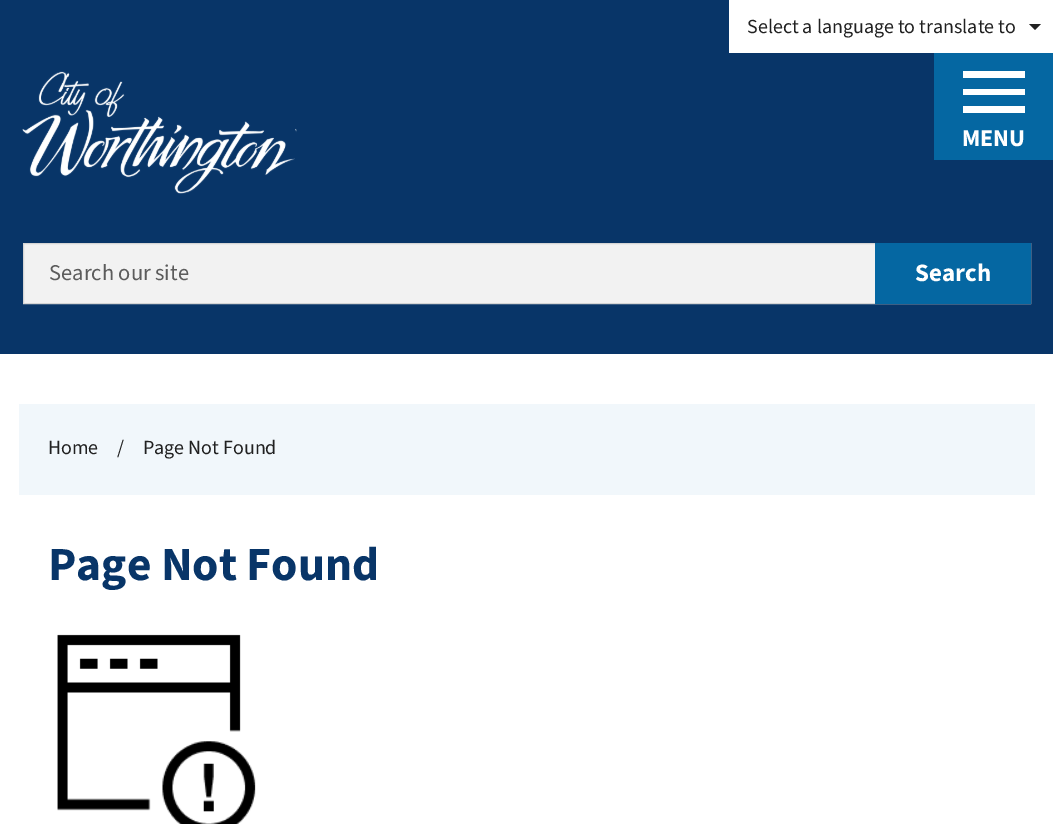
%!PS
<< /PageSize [1053 824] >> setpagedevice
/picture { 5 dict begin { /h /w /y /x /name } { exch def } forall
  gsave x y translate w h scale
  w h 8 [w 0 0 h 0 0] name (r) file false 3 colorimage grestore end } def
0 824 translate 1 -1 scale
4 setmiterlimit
1 setgray
0 0 1053 824 rectfill
0.031 0.208 0.408 setrgbcolor
0 0 729 53 rectfill
/SourceSans3-Regular [20 0 0 -20 0 0] selectfont
0.129 setgray
747 33 moveto (Select a language to translate to) show
newpath 1029 24 moveto 1041 24 lineto 1035 30 lineto closepath fill
0.031 0.208 0.408 setrgbcolor
0 53 1053 301 rectfill
(img1.rgb) 22 71 275 123 picture
0.02 0.404 0.635 setrgbcolor
934 53 119 107 rectfill
1 setgray
963 89 62 6 rectfill
963 71 62 7 rectfill
963 106 62 7 rectfill
/SourceSans3-Bold [24 0 0 -24 0 0] selectfont
962 146 moveto (MENU) show
0.949 setgray
24 244 851 59 rectfill
0.835 setgray
23.5 243.5 1007 60 rectstroke
/SourceSans3-Regular [22.5 0 0 -22.5 0 0] selectfont
0.361 setgray
49 280 moveto (Search our site) show
0.02 0.404 0.635 setrgbcolor
875 243 156 61 rectfill
/SourceSans3-Bold [25 0 0 -25 0 0] selectfont
1 setgray
915 281 moveto (Search) show
0.945 0.969 0.984 setrgbcolor
19 404 1016 91 rectfill
/SourceSans3-Regular [20 0 0 -20 0 0] selectfont
0.129 setgray
48 454 moveto (Home) show
117 454 moveto (/) show
143 454 moveto (Page Not Found) show
/SourceSans3-Bold [47.5 0 0 -47.5 0 0] selectfont
0.031 0.208 0.408 setrgbcolor
48 580 moveto (Page Not Found) show
(img2.rgb) 57 634 199 190 picture
showpage
